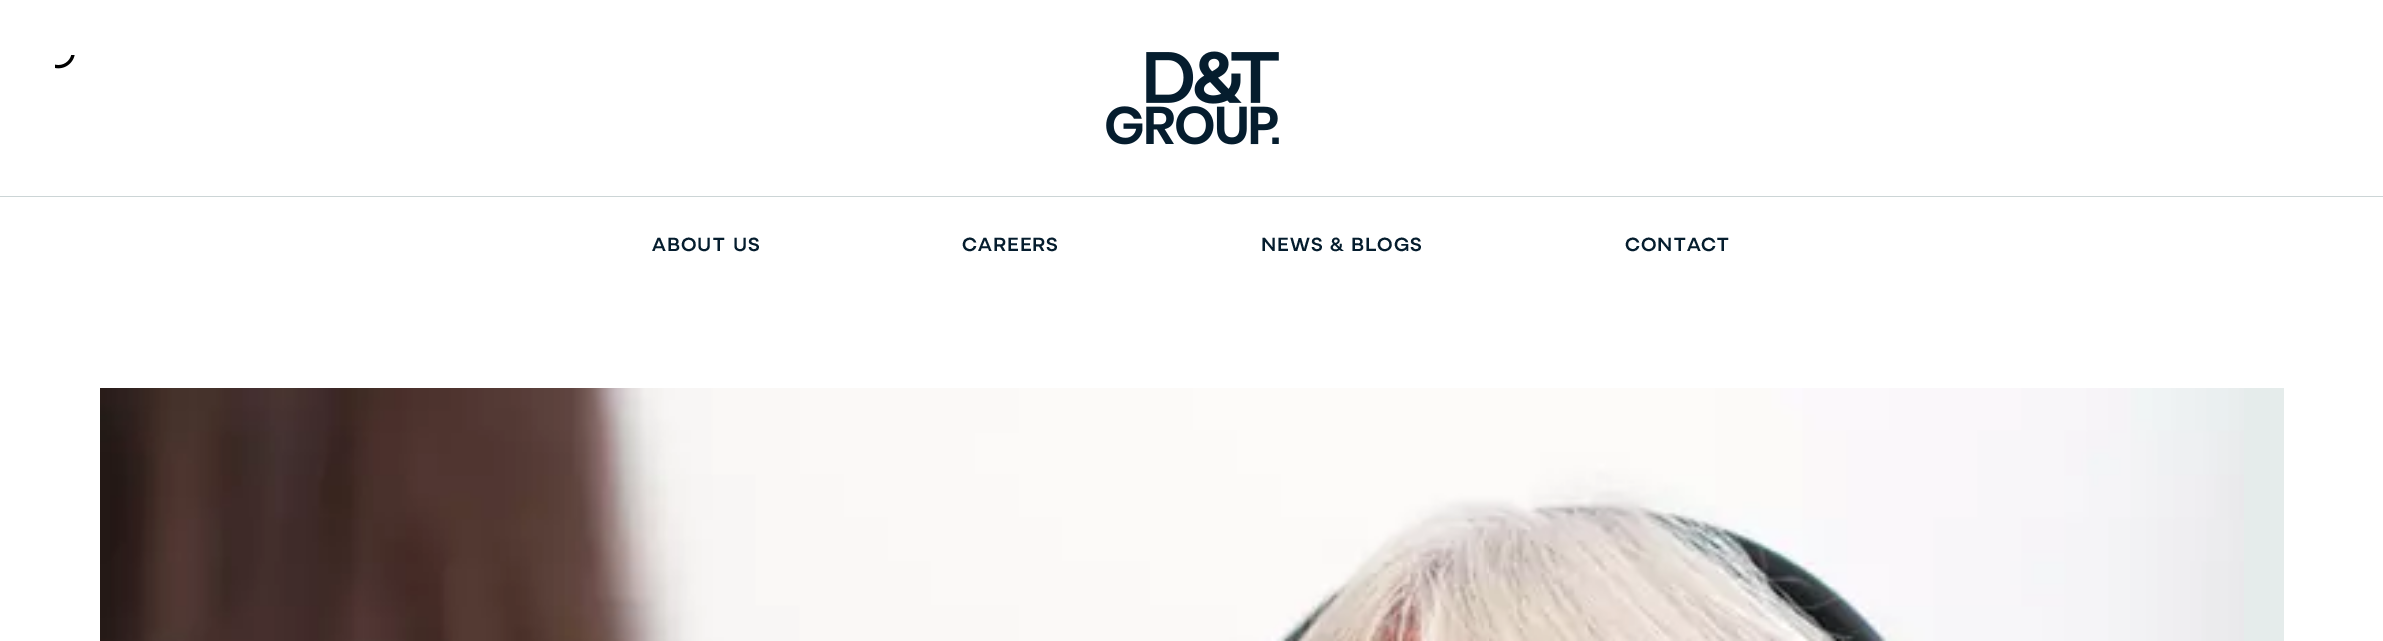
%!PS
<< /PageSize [2383 641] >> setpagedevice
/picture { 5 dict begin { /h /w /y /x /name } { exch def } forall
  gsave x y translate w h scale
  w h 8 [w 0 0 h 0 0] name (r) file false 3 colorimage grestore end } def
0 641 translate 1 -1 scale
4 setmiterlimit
1 setgray
0 0 2383 641 rectfill
0.8 0.835 0.839 setrgbcolor
0 196 2383 1 rectfill
(img1.rgb) 1106 51 173 94 picture
(img2.rgb) 55 55 20 14 picture
/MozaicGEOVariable-Medium [20 0 0 -20 0 0] selectfont
0.02 0.114 0.18 setrgbcolor
652 251 moveto 2 0 32 1 0 (ABOUT US) awidthshow
962 251 moveto 1 0 (CAREERS) ashow
1261 251 moveto 1 0 32 1 0 (NEWS & BLOGS) awidthshow
1625 251 moveto 1 0 (CONTACT) ashow
0.898 0.925 0.922 setrgbcolor
2244 388 40 253 rectfill
(img3.rgb) 100 388 2144 253 picture
showpage
